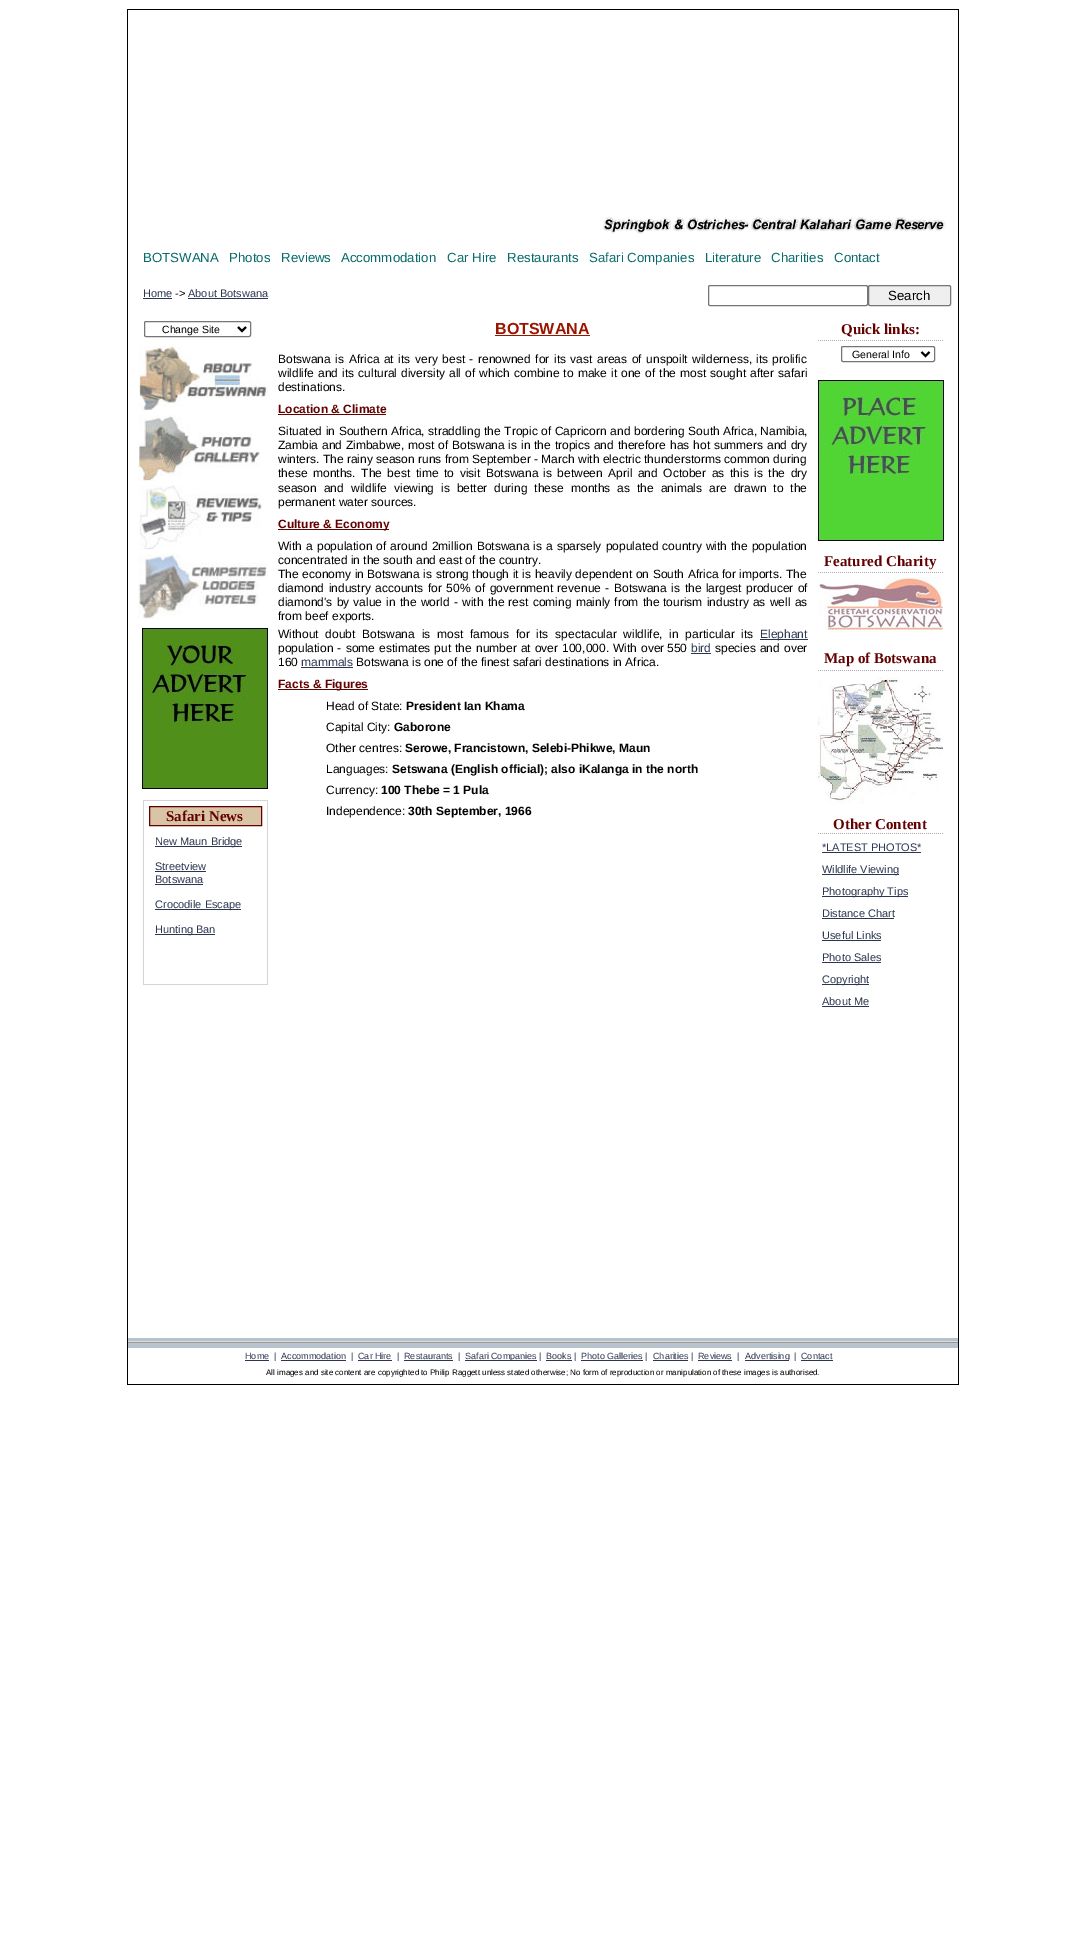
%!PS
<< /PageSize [1085 1946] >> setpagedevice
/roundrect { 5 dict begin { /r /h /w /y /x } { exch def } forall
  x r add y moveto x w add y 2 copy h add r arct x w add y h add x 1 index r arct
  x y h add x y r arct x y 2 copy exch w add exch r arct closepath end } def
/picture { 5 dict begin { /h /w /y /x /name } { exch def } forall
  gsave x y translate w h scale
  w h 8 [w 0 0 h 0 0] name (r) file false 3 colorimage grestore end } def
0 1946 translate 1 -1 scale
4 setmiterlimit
1 setgray
0 0 1085 1946 rectfill
(img1.rgb) 127 9 832 1376 picture
(img2.rgb) 602 217 344 17 picture
/LiberationSans-Regular [13.25 0 0 -13.25 0 0] selectfont
0.027 0.42 0.42 setrgbcolor
143 262 moveto (BOTSWANA) show
229 262 moveto (Photos) show
281 262 moveto (Reviews) show
341 262 moveto (Accommodation) show
447 262 moveto (Car Hire) show
507 262 moveto (Restaurants) show
589 262 moveto (Safari Companies) show
705 262 moveto (Literature) show
771 262 moveto (Charities) show
834 262 moveto (Contact) show
/LiberationSans-Regular [11 0 0 -11 0 0] selectfont
0.173 0.212 0.318 setrgbcolor
143 297 moveto (Home) show
143 298 29 1 rectfill
0 setgray
175 297 moveto (->) show
0.173 0.212 0.318 setrgbcolor
188 297 moveto (About Botswana) show
188 298 80 1 rectfill
0.463 setgray
708.5 285.5 159 20 1.5 roundrect stroke
0.937 setgray
868.5 285.5 82 20 1.5 roundrect gsave fill grestore
0.463 setgray
stroke
/LiberationSans-Regular [13.25 0 0 -13.25 0 0] selectfont
0 setgray
888 300 moveto (Search) show
0.463 setgray
144.5 321.5 106 15 1.5 roundrect stroke
0 setgray
2 setlinewidth
newpath 238 327 moveto 242 331 lineto 246 327 lineto stroke
/LiberationSans-Regular [10.5 0 0 -10.5 0 0] selectfont
162 333 moveto (Change Site) show
/LiberationSans-Bold [16 0 0 -16 0 0] selectfont
0.6 0.082 0 setrgbcolor
495 334 moveto (BOTSWANA) show
495 335 95 1 rectfill
/LiberationSans-Regular [12 0 0 -12 0 0] selectfont
0 setgray
278 363 moveto 1.25 0 32 (Botswana is Africa at its very best - renowned for its vast areas of unspoilt wilderness,) widthshow
756 363 moveto 1 0 32 (its prolific) widthshow
278 377 moveto 0.75 0 32 (wildlife and its cultural diversity all of which combine to make it) widthshow
621 377 moveto 0.75 0 32 (one of the most sought after safari) widthshow
278 391 moveto (destinations.) show
/LiberationSans-Bold [12 0 0 -12 0 0] selectfont
0.388 0 0 setrgbcolor
278 413 moveto (Location & Climate) show
278 414 108 1 rectfill
/LiberationSans-Regular [12 0 0 -12 0 0] selectfont
0 setgray
278 435 moveto 0.25 0 32 (Situated in Southern Africa, straddling the Tropic of Capricorn and bordering South) widthshow
723 435 moveto (Africa, Namibia,) show
278 449 moveto 0.5 0 32 (Zambia and Zimbabwe, most of Botswana is in the tropics and therefore) widthshow
670 449 moveto 0.5 0 32 (has hot summers and dry) widthshow
278 463 moveto (winters. The rainy season runs from September - March with electric thunderstorms common during) show
278 477 moveto 2.25 0 32 (these months. The best time to visit Botswana) widthshow
543 477 moveto 2.25 0 32 (is between April and October as this is the dry) widthshow
278 492 moveto 3.75 0 32 (season and wildlife viewing is better) widthshow
494 492 moveto 3.75 0 32 (during these months as the animals are drawn to the) widthshow
278 506 moveto (permanent water sources.) show
0.388 0 0 setrgbcolor
278 529 111 1 rectfill
/LiberationSans-Bold [12 0 0 -12 0 0] selectfont
278 528 moveto (Culture & Economy) show
/LiberationSans-Regular [12 0 0 -12 0 0] selectfont
0 setgray
278 550 moveto 0.75 0 32 (With a population of around 2million Botswana is a sparsely populated country with) widthshow
731 550 moveto 0.75 0 32 (the population) widthshow
278 564 moveto (concentrated in the south and east of the country.) show
278 578 moveto 0.25 0 32 (The economy in) widthshow
367 578 moveto 0.25 0 32 (Botswana is strong though it is heavily dependent on South Africa for imports. The) widthshow
278 592 moveto 1.25 0 32 (diamond industry accounts for 50% of government revenue - Botswana is the largest) widthshow
746 592 moveto 1 0 32 (producer of) widthshow
278 606 moveto 0.9 0 32 (diamond's by value in the world - with the rest coming mainly from the) widthshow
663 606 moveto 0.9 0 32 (tourism industry as well as) widthshow
278 620 moveto (from beef exports.) show
278 638 moveto 3.4 0 32 (Without doubt Botswana is most famous for its spectacular wildlife, in particular) widthshow
741 638 moveto (its) show
0.173 0.212 0.318 setrgbcolor
760 639 48 1 rectfill
760 638 moveto (Elephant) show
0 setgray
278 652 moveto 0.75 0 32 (population - some estimates put the number at over 100,000. With over) widthshow
667 652 moveto (550) show
0.173 0.212 0.318 setrgbcolor
691 652 moveto (bird) show
691 653 20 1 rectfill
0 setgray
715 652 moveto 0.75 0 32 (species and over) widthshow
278 666 moveto (160) show
0.173 0.212 0.318 setrgbcolor
301 666 moveto (mammals) show
301 667 52 1 rectfill
0 setgray
356 666 moveto (Botswana is one of the finest safari destinations in Africa.) show
0.388 0 0 setrgbcolor
278 689 90 1 rectfill
/LiberationSans-Bold [12 0 0 -12 0 0] selectfont
278 688 moveto (Facts & Figures) show
/LiberationSans-Regular [12 0 0 -12 0 0] selectfont
0 setgray
326 710 moveto (Head of State:) show
/LiberationSans-Bold [12 0 0 -12 0 0] selectfont
406 710 moveto (President Ian Khama) show
/LiberationSans-Regular [12 0 0 -12 0 0] selectfont
326 731 moveto (Capital City:) show
/LiberationSans-Bold [12 0 0 -12 0 0] selectfont
394 731 moveto (Gaborone) show
/LiberationSans-Regular [12 0 0 -12 0 0] selectfont
326 752 moveto (Other centres:) show
/LiberationSans-Bold [12 0 0 -12 0 0] selectfont
405 752 moveto (Serowe, Francistown, Selebi-Phikwe, Maun) show
/LiberationSans-Regular [12 0 0 -12 0 0] selectfont
326 773 moveto (Languages:) show
/LiberationSans-Bold [12 0 0 -12 0 0] selectfont
392 773 moveto (Setswana \(English official\); also iKalanga in the north) show
/LiberationSans-Regular [12 0 0 -12 0 0] selectfont
326 794 moveto (Currency:) show
/LiberationSans-Bold [12 0 0 -12 0 0] selectfont
381 794 moveto (100 Thebe = 1 Pula) show
/LiberationSans-Regular [12 0 0 -12 0 0] selectfont
326 815 moveto (Independence:) show
/LiberationSans-Bold [12 0 0 -12 0 0] selectfont
408 815 moveto (30th September, 1966) show
/LiberationSerif-Bold [15 0 0 -15 0 0] selectfont
0.388 0 0 setrgbcolor
841 334 moveto (Quick links:) show
(img3.rgb) 818 340 125 1 picture
(img4.rgb) 139 346 130 65 picture
0.463 setgray
1 setlinewidth
841.5 346.5 93 15 1.5 roundrect stroke
0 setgray
2 setlinewidth
newpath 921.5 352 moveto 925.5 356 lineto 929.5 352 lineto stroke
/LiberationSans-Regular [10.5 0 0 -10.5 0 0] selectfont
852 358 moveto (General Info) show
(img5.rgb) 138 415 122 66 picture
(img6.rgb) 818 380 126 161 picture
(img7.rgb) 139 485 123 65 picture
(img8.rgb) 138 554 130 65 picture
/LiberationSerif-Bold [15 0 0 -15 0 0] selectfont
0.388 0 0 setrgbcolor
824 566 moveto (Featured Charity) show
(img3.rgb) 818 572 125 1 picture
(img9.rgb) 818 577 125 53 picture
(img10.rgb) 142 628 126 161 picture
824 663 moveto (Map of Botswana) show
(img3.rgb) 818 670 125 1 picture
(img11.rgb) 818 677 125 127 picture
0.851 0.769 0.647 setrgbcolor
newpath 149.5 806.5 moveto 261.5 806.5 lineto 261.5 825.5 lineto 149.5 825.5 lineto closepath gsave fill grestore
0.388 0 0 setrgbcolor
1 setlinewidth
stroke
166 821 moveto (Safari News) show
833 829 moveto (Other Content) show
/LiberationSans-Regular [11 0 0 -11 0 0] selectfont
0.173 0.212 0.318 setrgbcolor
822 851 moveto (*LATEST PHOTOS*) show
822 852 99 1 rectfill
822 874 77 1 rectfill
822 873 moveto (Wildlife Viewing) show
822 896 86 1 rectfill
822 895 moveto (Photography Tips) show
822 917 moveto (Distance Chart) show
822 918 72 1 rectfill
822 939 moveto (Useful Links) show
822 940 59 1 rectfill
822 961 moveto (Photo Sales) show
822 962 59 1 rectfill
822 984 47 1 rectfill
822 983 moveto (Copyright) show
822 1005 moveto (About Me) show
822 1006 47 1 rectfill
(img3.rgb) 818 833 125 1 picture
155 846 87 1 rectfill
155 845 moveto (New Maun Bridge) show
155 870 moveto (Streetview) show
155 871 51 1 rectfill
155 883 moveto (Botswana) show
155 884 48 1 rectfill
155 909 86 1 rectfill
155 908 moveto (Crocodile Escape) show
155 934 60 1 rectfill
155 933 moveto (Hunting Ban) show
(img12.rgb) 128 1338 830 10 picture
/LiberationSans-Regular [9 0 0 -9 0 0] selectfont
245 1359 moveto (Home) show
245 1360 24 1 rectfill
274 1359 moveto (|) show
281 1359 moveto (Accommodation) show
281 1360 65 1 rectfill
351 1359 moveto (|) show
358 1359 moveto (Car Hire) show
358 1360 34 1 rectfill
397 1359 moveto (|) show
404 1359 moveto (Restaurants) show
404 1360 49 1 rectfill
458 1359 moveto (|) show
465 1360 72 1 rectfill
465 1359 moveto (Safari Companies |) show
546 1360 26 1 rectfill
546 1359 moveto (Books |) show
581 1360 62 1 rectfill
581 1359 moveto (Photo Galleries |) show
653 1360 35 1 rectfill
653 1359 moveto (Charities |) show
698 1359 moveto (Reviews) show
698 1360 34 1 rectfill
737 1359 moveto (|) show
745 1360 44 1 rectfill
745 1359 moveto (Advertising) show
794 1359 moveto (|) show
801 1359 moveto (Contact) show
801 1360 32 1 rectfill
/LiberationSans-Regular [8 0 0 -8 0 0] selectfont
0 setgray
266 1375 moveto (All images and site content are copyrighted to Philip Raggett unless stated otherwise; No form of reproduction or manipulation of these images is authorised.) show
showpage
